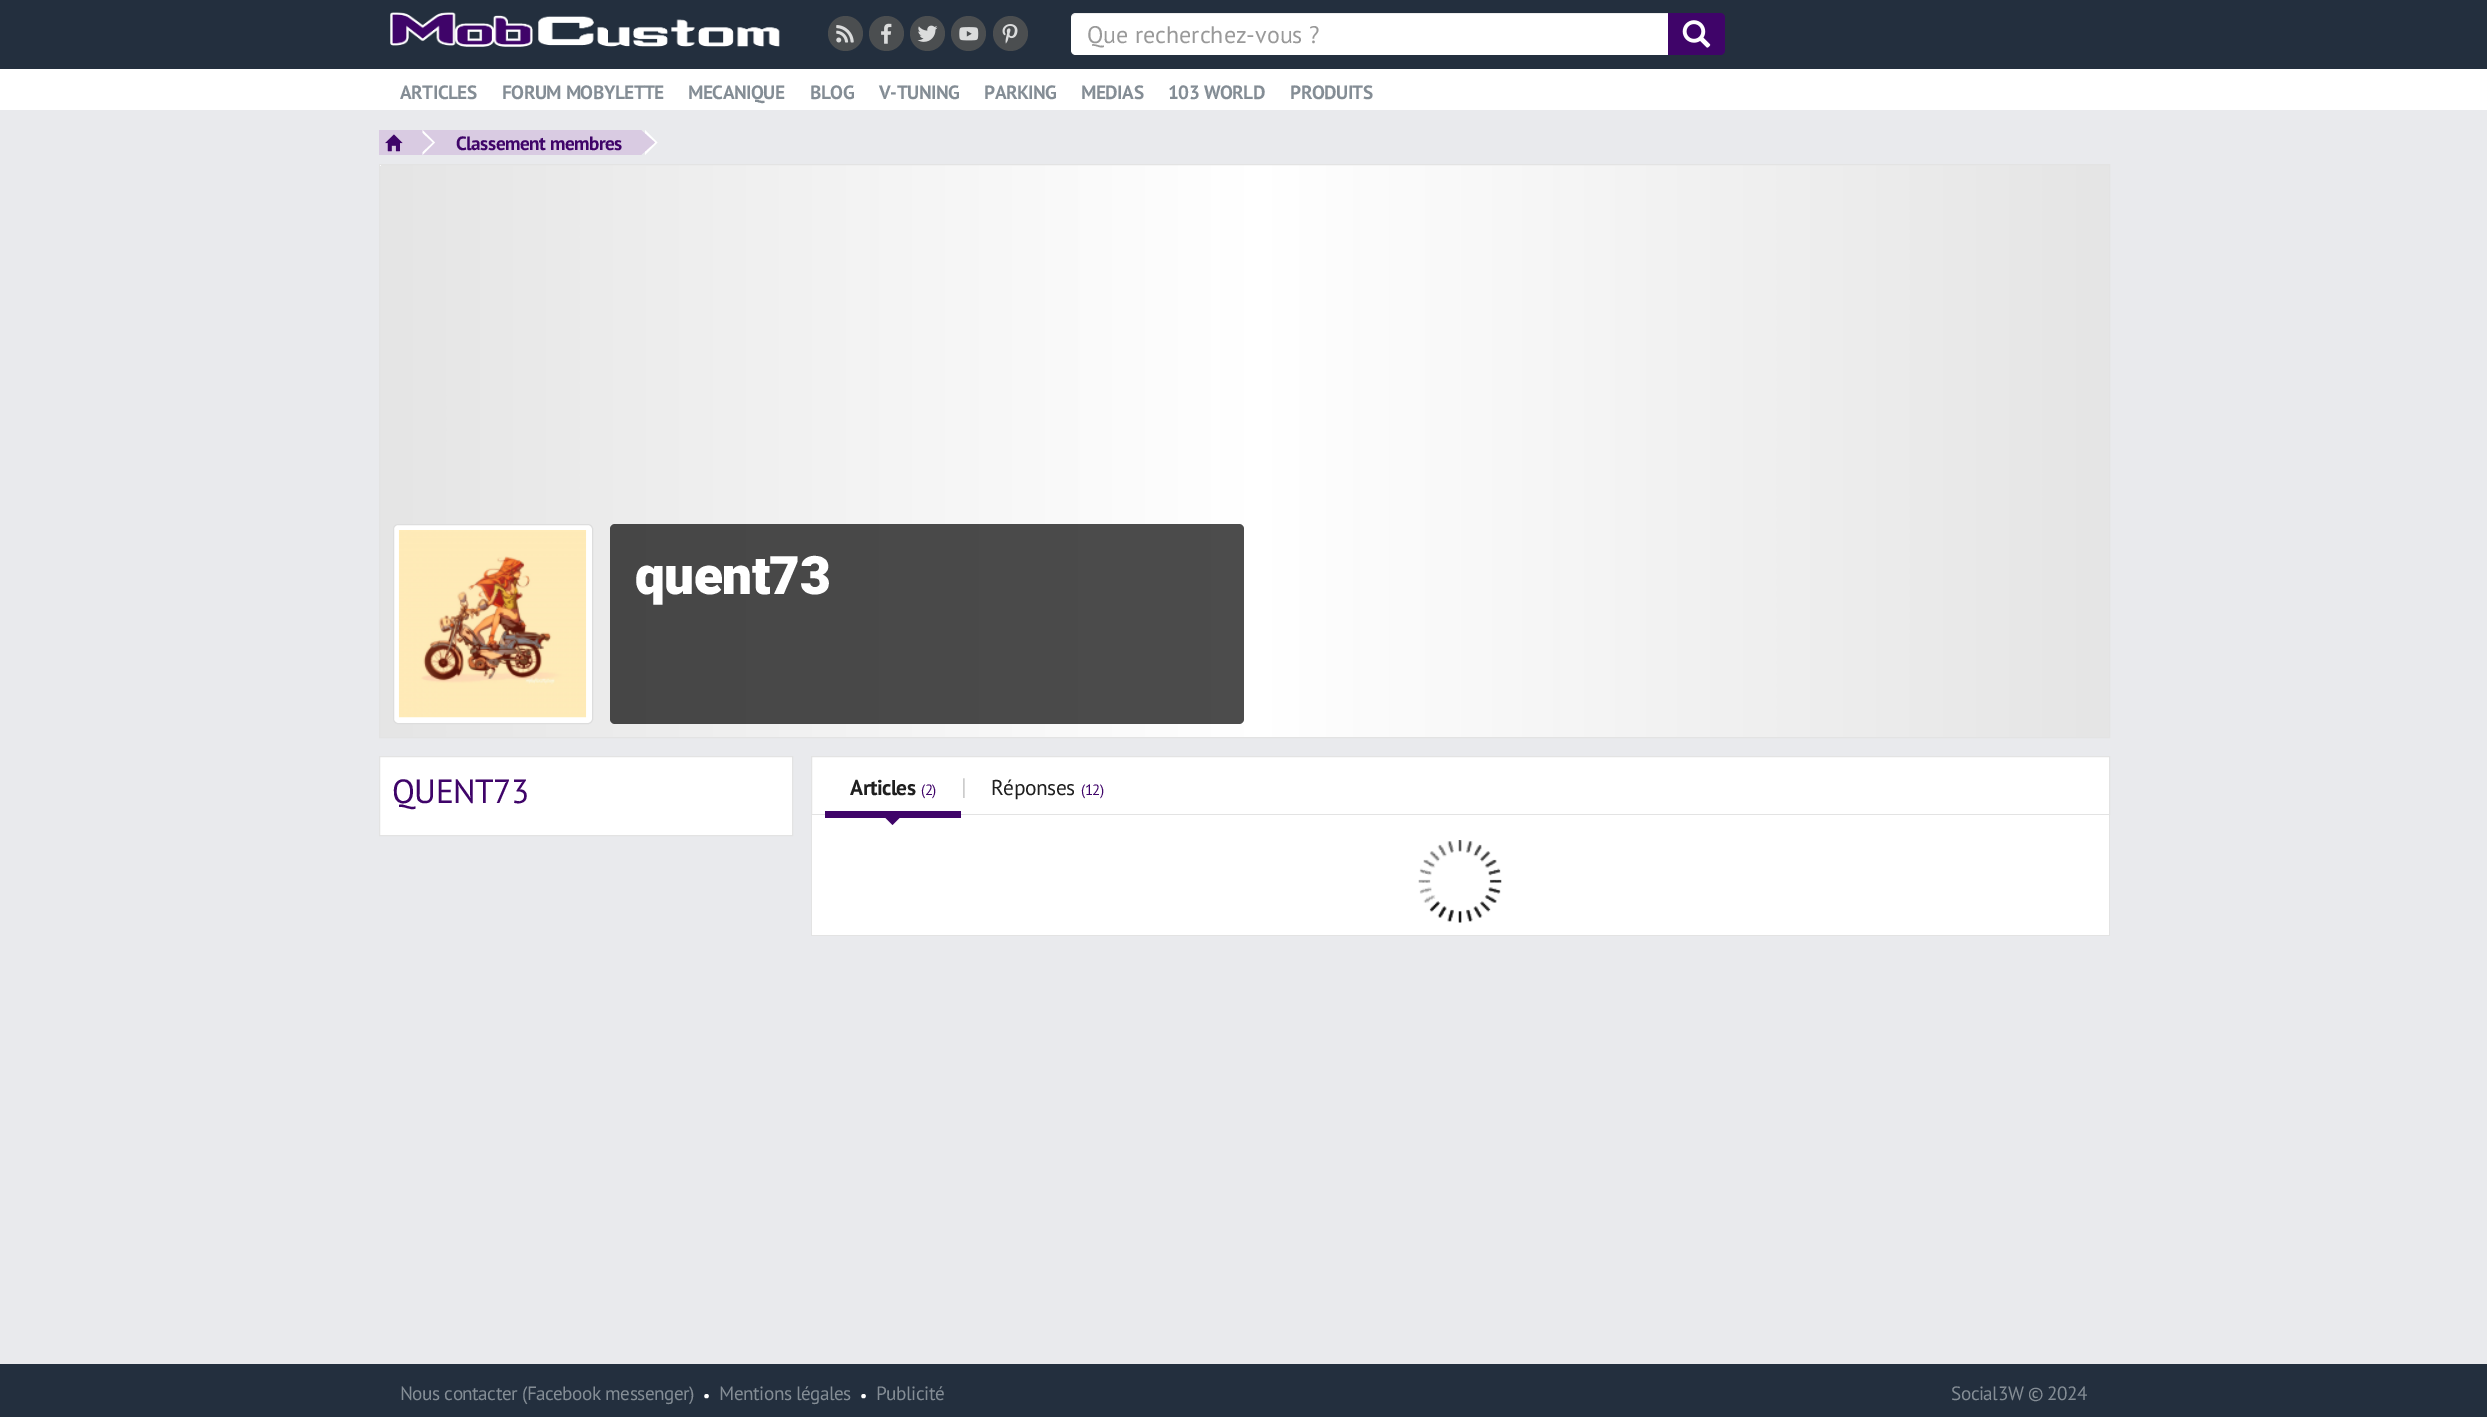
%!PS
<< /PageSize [2487 1417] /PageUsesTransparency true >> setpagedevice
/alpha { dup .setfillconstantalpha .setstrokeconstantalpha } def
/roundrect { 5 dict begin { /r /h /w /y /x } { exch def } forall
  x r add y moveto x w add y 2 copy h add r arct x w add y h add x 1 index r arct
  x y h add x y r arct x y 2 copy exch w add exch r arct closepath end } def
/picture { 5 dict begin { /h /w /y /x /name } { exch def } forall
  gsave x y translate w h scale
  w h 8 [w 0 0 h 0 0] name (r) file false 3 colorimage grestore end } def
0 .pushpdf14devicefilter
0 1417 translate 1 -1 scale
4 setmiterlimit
0.914 0.918 0.929 setrgbcolor
0 0 2487 1417 rectfill
0.137 0.184 0.243 setrgbcolor
0 0 2487 69 rectfill
(img1.rgb) 390 12 390 35 picture
0.294 0.306 0.314 setrgbcolor
newpath 845.5 33.5 17.5 0 360 arc closepath fill
(img2.rgb) 836 25 18 18 picture
newpath 886.5 33.5 17.5 0 360 arc closepath fill
(img3.rgb) 881 23 11 21 picture
newpath 927.5 33.5 17.5 0 360 arc closepath fill
(img4.rgb) 917 25 21 17 picture
newpath 968.5 33.5 17.5 0 360 arc closepath fill
(img5.rgb) 959 27 20 14 picture
newpath 1010.5 33.5 17.5 0 360 arc closepath fill
(img6.rgb) 1002 24 16 20 picture
1 setgray
newpath 1076 13 moveto 1668 13 lineto 1668 55 lineto 1076 55 lineto 1073 55 1071 53 1071 50 curveto 1071 18 lineto 1071 15 1073 13 1076 13 curveto closepath fill
0.07 alpha
0 setgray
newpath 1076 14 moveto 1668 14 lineto 1668 13 lineto 1076 13 lineto 1073 13 1071 16 1071 19 curveto 1071 16 1073 14 1076 14 curveto closepath fill
/PTSans-Regular [24 0 0 -24 0 0] selectfont
1 alpha
0.6 setgray
1087 43 moveto (Que recherchez-vous ?) show
0.247 0.016 0.412 setrgbcolor
newpath 1668 13 moveto 1720 13 lineto 1723 13 1725 15 1725 18 curveto 1725 50 lineto 1725 53 1723 55 1720 55 curveto 1668 55 lineto closepath fill
(img7.rgb) 1682 20 29 28 picture
1 setgray
0 69 2487 41 rectfill
/PTSans-Bold [19.25 0 0 -19.25 0 0] selectfont
0.518 0.553 0.584 setrgbcolor
400 99 moveto -0.5 0 (ARTICLES) ashow
502 99 moveto -0.5 0 (FORUM MOBYLETTE) ashow
688 99 moveto -0.5 0 (MECANIQUE) ashow
810 99 moveto -0.5 0 (BLOG) ashow
879 99 moveto -0.5 0 (V-TUNING) ashow
984 99 moveto -0.5 0 (PARKING) ashow
1081 99 moveto -0.5 0 (MEDIAS) ashow
1168 99 moveto -0.5 0 (103 WORLD) ashow
1290 99 moveto -0.5 0 (PRODUITS) ashow
0.851 0.796 0.886 setrgbcolor
379 130 262 25 rectfill
1 setgray
newpath 422.5 155 moveto 422.5 130 lineto 435 142.5 lineto closepath fill
0.851 0.796 0.886 setrgbcolor
newpath 419 155 moveto 419 130 lineto 432.5 142.5 lineto closepath fill
(img8.rgb) 385 134 18 18 picture
1 setgray
newpath 645 155 moveto 645 130 lineto 657.5 142.5 lineto closepath fill
0.851 0.796 0.886 setrgbcolor
newpath 641 155 moveto 641 130 lineto 655 142.5 lineto closepath fill
0.247 0.016 0.412 setrgbcolor
456 150 moveto -0.5 0 (Classement membres) ashow
gsave newpath 380 165 moveto 2109 165 lineto 2109 737 lineto 380 737 lineto closepath clip newpath
<< /ShadingType 2 /ColorSpace /DeviceRGB /Coords [380 451 2109 451] /Extend [true true] /Function << /FunctionType 3 /Domain [0 1] /Functions [<< /FunctionType 2 /Domain [0 1] /C0 [0.898 0.898 0.898] /C1 [1 1 1] /N 1 >> << /FunctionType 2 /Domain [0 1] /C0 [1 1 1] /C1 [1 1 1] /N 1 >> << /FunctionType 2 /Domain [0 1] /C0 [1 1 1] /C1 [0.898 0.898 0.898] /N 1 >>] /Bounds [0.5 0.51] /Encode [0 1 0 1 0 1] >> >> shfill grestore
0.89 setgray
379.5 164.5 1730 573 rectstroke
1 setgray
380 165 1 1 rectfill
393.5 524.5 199 199 4.5 roundrect gsave fill grestore
0.867 setgray
stroke
(img9.rgb) 398 530 189 188 picture
0.7 alpha
0 setgray
610 524 634 200 5 roundrect fill
/Heebo-Black [53 0 0 -53 0 0] selectfont
1 alpha
1 setgray
635 594 moveto -0.5 0 (quent73) ashow
newpath 379.5 756.5 moveto 792.5 756.5 lineto 792.5 835.5 lineto 379.5 835.5 lineto closepath gsave fill grestore
0.89 setgray
stroke
/PTSans-Regular [33.5 0 0 -33.5 0 0] selectfont
0.247 0.016 0.412 setrgbcolor
392 803 moveto -0.5 0 (QUENT73) ashow
1 setgray
newpath 811.5 756.5 moveto 2109.5 756.5 lineto 2109.5 814.5 lineto 811.5 814.5 lineto closepath gsave fill grestore
0.89 setgray
stroke
/PTSans-Bold [21.5 0 0 -21.5 0 0] selectfont
0.122 setgray
850 795 moveto -0.5 0 (Articles) ashow
/PTSans-Regular [15 0 0 -15 0 0] selectfont
0.247 0.016 0.412 setrgbcolor
921 795 moveto -0.5 0 (\(2\)) ashow
1 setgray
812 815 1297 120 rectfill
0.247 0.016 0.412 setrgbcolor
825 811 136 7 rectfill
newpath 880 812.5 moveto 905 812.5 lineto 892.5 825 lineto closepath fill
/PTSans-Regular [24 0 0 -24 0 0] selectfont
0.8 setgray
961 795 moveto -0.5 0 (|) ashow
/PTSans-Regular [21.5 0 0 -21.5 0 0] selectfont
0.122 setgray
991 795 moveto -0.5 0 (Réponses) ashow
/PTSans-Regular [15 0 0 -15 0 0] selectfont
0.247 0.016 0.412 setrgbcolor
1081 795 moveto -0.5 0 (\(12\)) ashow
0.89 setgray
2109 815 1 121 rectfill
811 935 1299 1 rectfill
811 815 1 121 rectfill
(img10.rgb) 1418 840 84 83 picture
0.137 0.184 0.243 setrgbcolor
0 1364 2487 53 rectfill
/PTSans-Regular [19.25 0 0 -19.25 0 0] selectfont
0.518 0.553 0.584 setrgbcolor
400 1400 moveto -0.5 0 (Nous contacter \(Facebook messenger\)) ashow
/PTSans-Bold [29 0 0 -29 0 0] selectfont
1 setgray
703 1398 moveto -0.5 0 (.) ashow
/PTSans-Regular [19.25 0 0 -19.25 0 0] selectfont
0.518 0.553 0.584 setrgbcolor
719 1400 moveto -0.5 0 (Mentions légales) ashow
/PTSans-Bold [29 0 0 -29 0 0] selectfont
1 setgray
860 1398 moveto -0.5 0 (.) ashow
/PTSans-Regular [19.25 0 0 -19.25 0 0] selectfont
0.518 0.553 0.584 setrgbcolor
876 1400 moveto -0.5 0 (Publicité) ashow
1951 1400 moveto -0.5 0 (Social3W © 2024) ashow
.poppdf14devicefilter showpage
